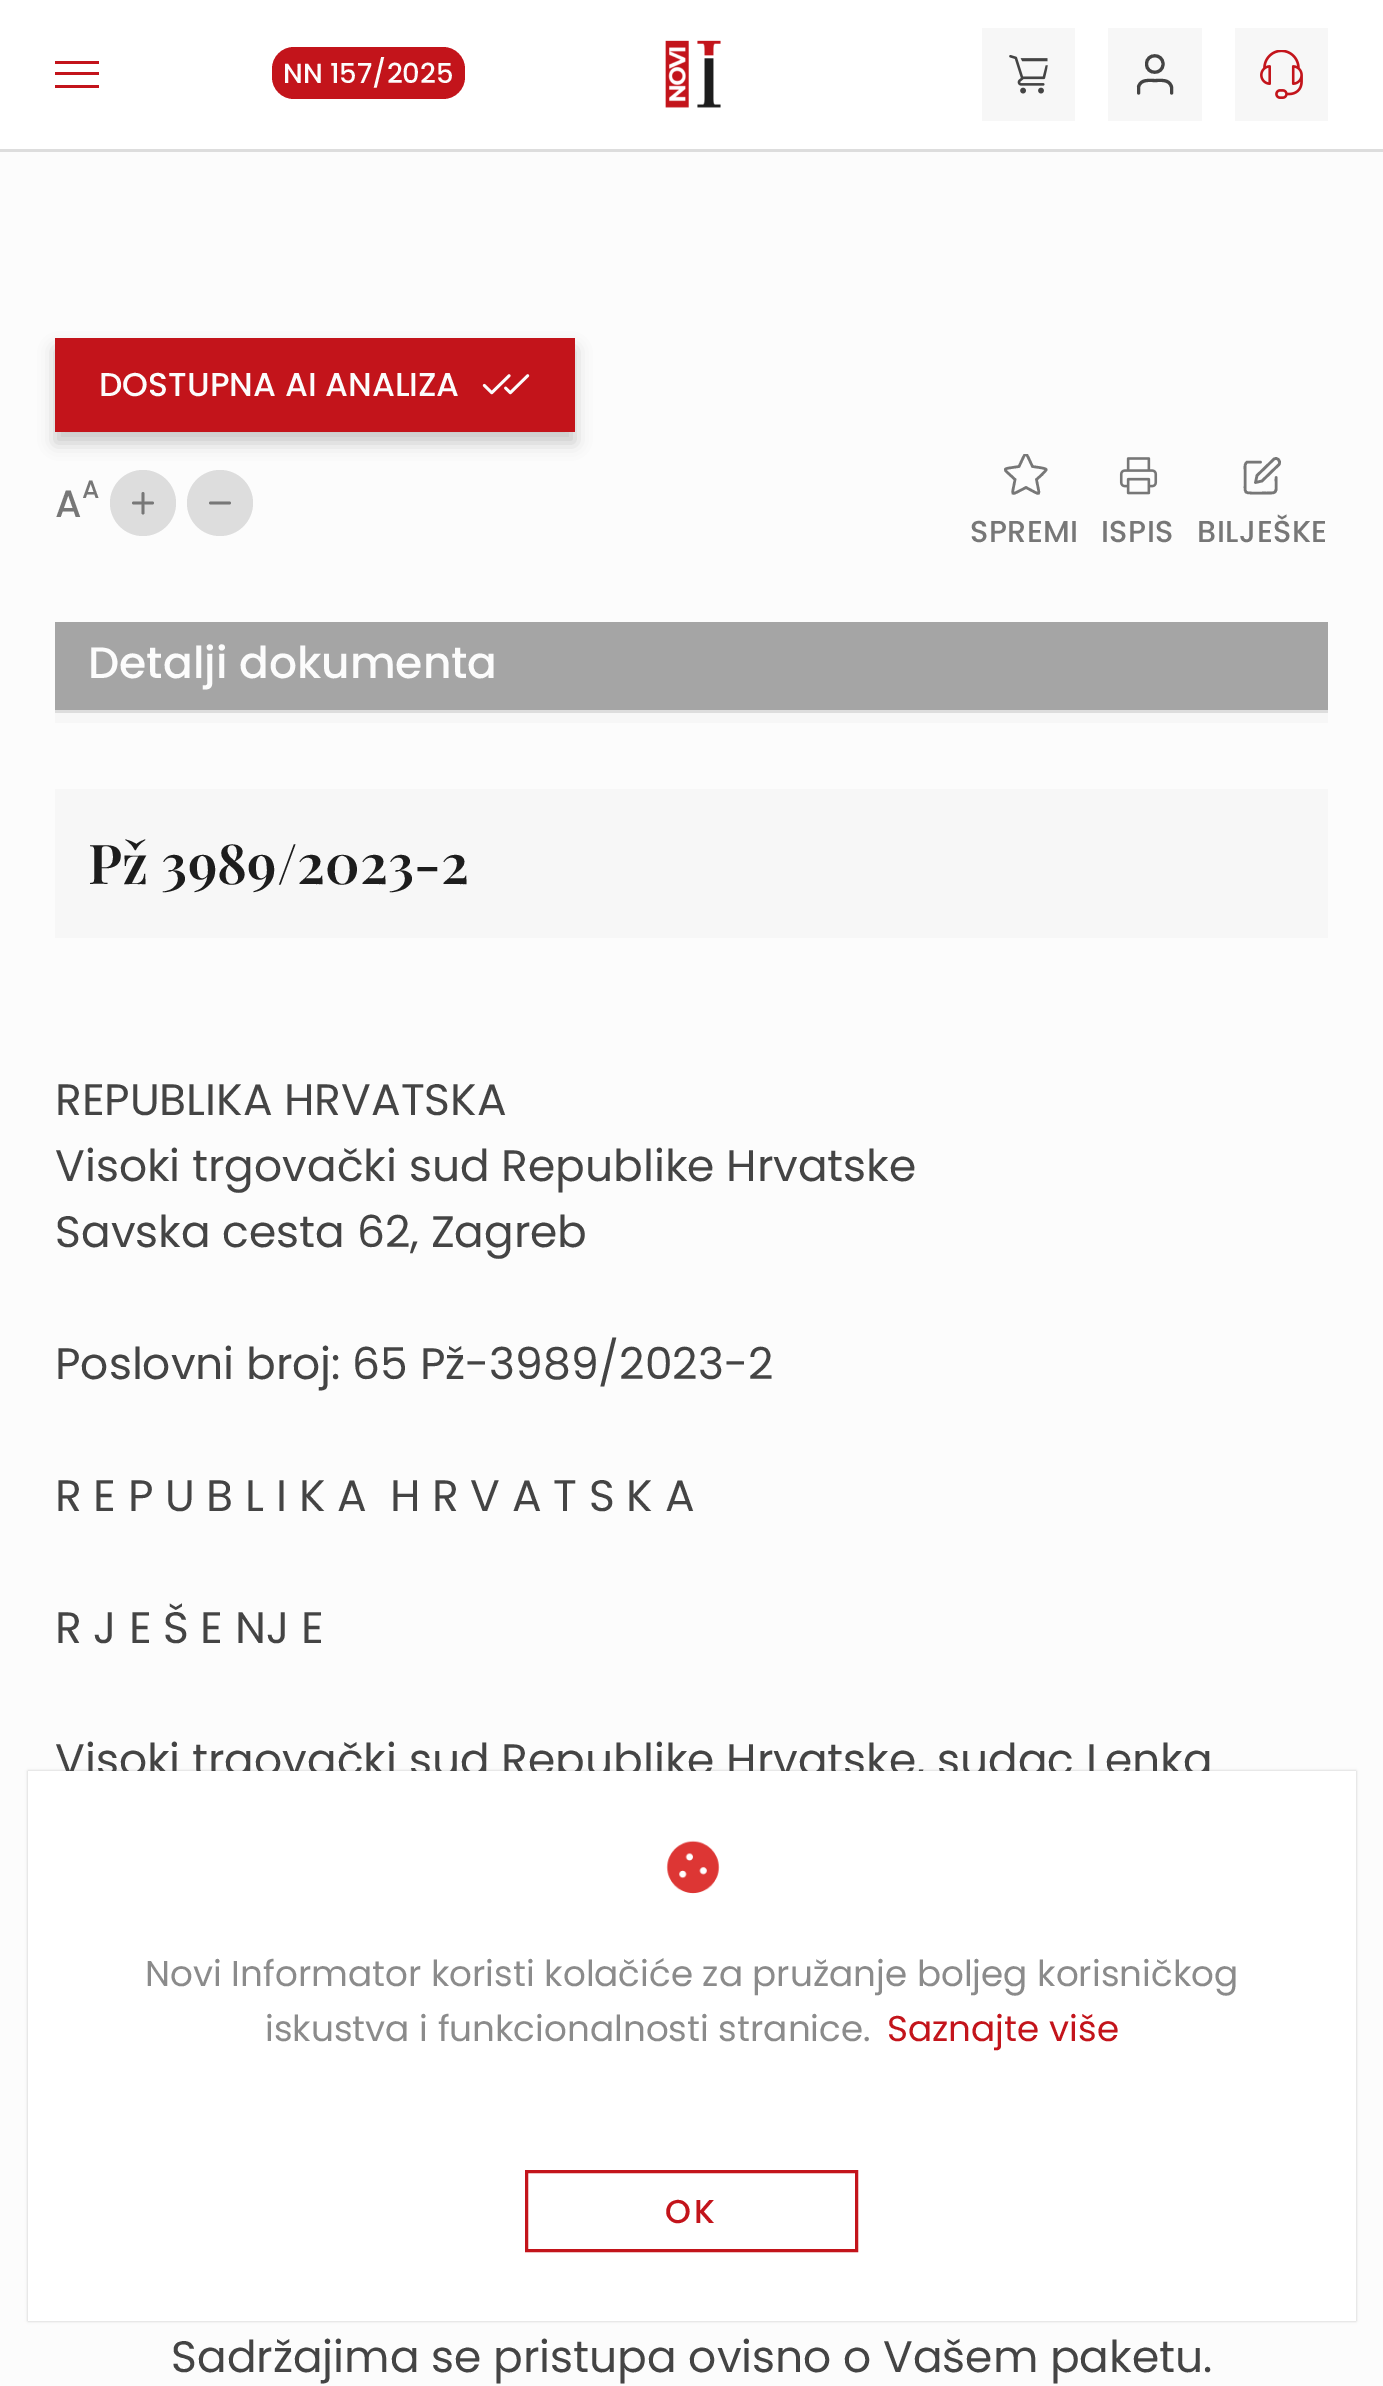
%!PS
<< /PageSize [1383 2386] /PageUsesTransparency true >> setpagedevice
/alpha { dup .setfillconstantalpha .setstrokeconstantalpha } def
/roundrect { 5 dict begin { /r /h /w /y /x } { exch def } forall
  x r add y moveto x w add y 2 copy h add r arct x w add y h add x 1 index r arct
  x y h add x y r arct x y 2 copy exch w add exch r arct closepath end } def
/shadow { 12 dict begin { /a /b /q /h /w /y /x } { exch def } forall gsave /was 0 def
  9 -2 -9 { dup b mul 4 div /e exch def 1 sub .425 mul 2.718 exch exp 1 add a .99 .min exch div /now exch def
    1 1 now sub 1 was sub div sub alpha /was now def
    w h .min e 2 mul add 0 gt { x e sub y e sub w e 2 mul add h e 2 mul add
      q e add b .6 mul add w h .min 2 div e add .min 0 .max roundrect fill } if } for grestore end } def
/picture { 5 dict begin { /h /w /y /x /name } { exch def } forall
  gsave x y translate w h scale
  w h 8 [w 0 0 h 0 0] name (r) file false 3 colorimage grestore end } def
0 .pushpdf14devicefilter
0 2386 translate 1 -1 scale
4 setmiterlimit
0.988 setgray
0 0 1383 2386 rectfill
1 setgray
0 0 1383 149 rectfill
0.867 setgray
0 149 1383 3 rectfill
0.765 0.078 0.106 setrgbcolor
55 72 44 3 rectfill
55 61 44 3 rectfill
55 85 44 3 rectfill
272 47 193 52 22 roundrect fill
/Poppins-Medium [27.5 0 0 -27.5 0 0] selectfont
0.988 setgray
283 83 moveto (NN 157/2025) show
(img1.rgb) 665 40 56 68 picture
0.969 setgray
982 28 93 93 rectfill
(img2.rgb) 1009 55 39 39 picture
1108 28 94 93 rectfill
0.267 setgray
3.1 setlinewidth
1 setlinecap
1 setlinejoin
newpath 1171.5 93 moveto 1171.5 87 lineto 1169.5 79 1161 80.5 1155 80.5 curveto 1149 80.5 1140.5 79 1138.5 87 curveto 1138.5 93 lineto 1163 64 moveto 1163 75 1146.5 75 1146.5 64 curveto 1146.5 53 1163 53 1163 64 curveto closepath stroke
0.969 setgray
1235 28 93 93 rectfill
(img3.rgb) 1260 50 43 49 picture
0 setgray
55 349 520 94 0 8 0.2 shadow
0.765 0.078 0.106 setrgbcolor
55 338 520 94 rectfill
/Poppins-Medium [33 0 0 -33 0 0] selectfont
0.988 setgray
99 396 moveto (DOSTUPNA AI ANALIZA) show
(img4.rgb) 482 374 48 21 picture
/Poppins-Medium [38 0 0 -38 0 0] selectfont
0.467 setgray
55 517 moveto (A) show
/Poppins-Medium [25 0 0 -25 0 0] selectfont
82 498 moveto (A) show
0.867 setgray
newpath 143 503 33 0 360 arc closepath fill
0.467 setgray
2.8 setlinewidth
newpath 143 493.5 moveto 143 513 lineto 133.5 503 moveto 152.5 503 lineto stroke
0.867 setgray
newpath 220 503 33 0 360 arc closepath fill
0.467 setgray
newpath 210.5 503 moveto 229.5 503 lineto stroke
gsave
1004 454 44 44 rectclip
2.5 setlinewidth
0 setlinecap
0 setlinejoin
newpath 1046 469.5 moveto 1046 471.5 1038 478 1036.5 479.5 curveto 1039.5 497 1042.5 496 1026 487.5 curveto 1009 496 1012 497 1015 479.5 curveto 1002 467 1000.5 469.5 1019 466.5 curveto 1027 450 1024.5 450 1032.5 466.5 curveto 1034.5 467 1046 468 1046 469.5 curveto closepath stroke
grestore
/Poppins-Medium [30.25 0 0 -30.25 0 0] selectfont
970 542 moveto 0.5 0 (SPREMI) ashow
(img5.rgb) 1119 457 39 38 picture
1101 542 moveto 0.5 0 (ISPIS) ashow
2.6 setlinewidth
newpath 1260.5 462 moveto 1247.5 462 lineto 1244.5 463 1245 467 1245 469.5 curveto 1245 485.5 lineto 1245 493 1245 493 1252.5 493 curveto 1260.5 493 lineto 1279 493 1276 495 1276 477.5 curveto 1273.5 459.5 moveto 1276.5 456 1281.5 461 1279 464.5 curveto 1262 481 lineto 1255.5 482.5 lineto 1257 475.5 lineto closepath stroke
1197 542 moveto 0.5 0 (BILJEŠKE) ashow
0.969 setgray
55 713 1273 10 rectfill
0.647 setgray
55 622 1273 88 rectfill
0.867 setgray
55 710 1273 3 rectfill
/Poppins-Medium [44 0 0 -44 0 0] selectfont
0.988 setgray
88 678 moveto (Detalji dokumenta) show
0.969 setgray
55 789 1273 149 rectfill
/PlayfairDisplay-SemiBold [55 0 0 -55 0 0] selectfont
0.114 setgray
88 884 moveto (Pž 3989/2023-2) show
/Poppins-Regular [44 0 0 -44 0 0] selectfont
0.267 setgray
55 1115 moveto (REPUBLIKA HRVATSKA) show
55 1181 moveto (Visoki trgovački sud Republike Hrvatske) show
55 1247 moveto (Savska cesta 62, Zagreb) show
55 1379 moveto (Poslovni broj: 65 Pž-3989/2023-2) show
55 1511 moveto (R E P U B L I K A  H R V A T S K A) show
55 1643 moveto (R J E Š E NJ E) show
55 1775 moveto (Visoki trgovački sud Republike Hrvatske, sudac Lenka) show
171 2372 moveto (Sadržajima se pristupa ovisno o Vašem paketu.) show
0.333 setgray
28 1771 1328 550 0 1.5 0.3 shadow
1 setgray
28 1771 1328 550 rectfill
(img6.rgb) 666 1840 54 54 picture
/Poppins-Regular [35.75 0 0 -35.75 0 0] selectfont
0.545 setgray
145 1986 moveto (Novi Informator koristi kolačiće za pružanje boljeg korisničkog) show
265 2041 moveto (iskustva i funkcionalnosti stranice.) show
0.765 0.078 0.106 setrgbcolor
887 2041 moveto (Saznajte više) show
3 setlinewidth
0 setlinecap
0 setlinejoin
526.5 2171.5 330 79 rectstroke
/Poppins-Medium [33 0 0 -33 0 0] selectfont
665 2223 moveto 3 0 (OK) ashow
.poppdf14devicefilter showpage
